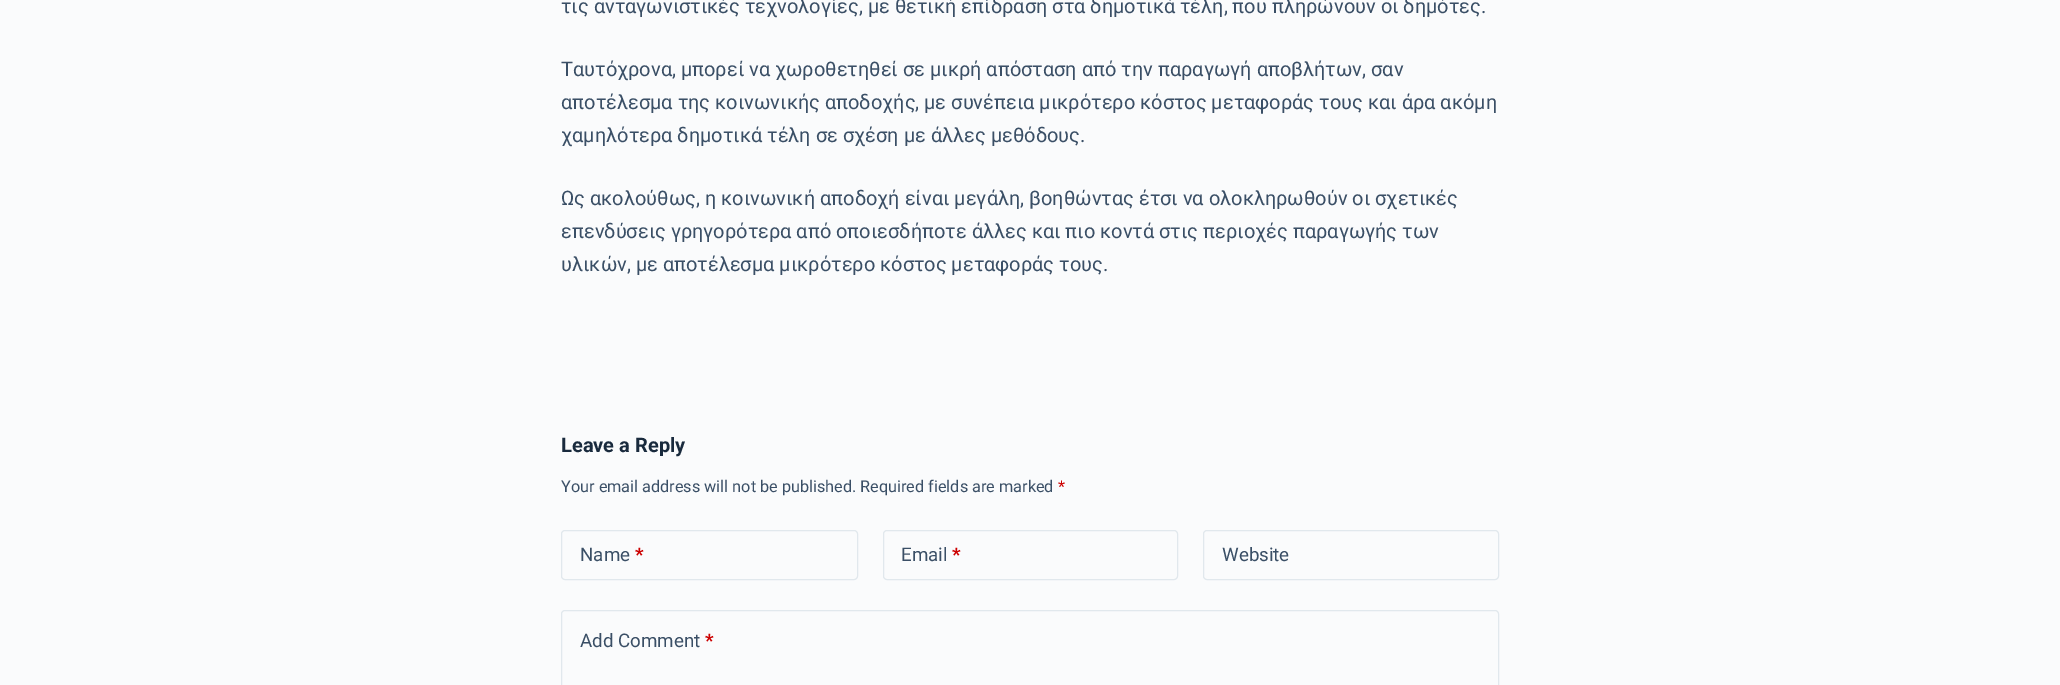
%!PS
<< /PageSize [2060 685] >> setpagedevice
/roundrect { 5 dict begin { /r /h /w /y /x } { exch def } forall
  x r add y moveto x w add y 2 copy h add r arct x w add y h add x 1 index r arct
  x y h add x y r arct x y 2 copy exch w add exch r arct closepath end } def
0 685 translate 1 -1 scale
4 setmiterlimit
0.98 0.984 0.988 setrgbcolor
0 0 2060 685 rectfill
/Roboto-Regular [20 0 0 -20 0 0] selectfont
0.227 0.31 0.4 setrgbcolor
561 13 moveto (τις ανταγωνιστικές τεχνολογίες, με θετική επίδραση στα δημοτικά τέλη, που πληρώνουν οι δημότες.) show
561 76 moveto (Ταυτόχρονα, μπορεί να χωροθετηθεί σε μικρή απόσταση από την παραγωγή αποβλήτων, σαν) show
561 109 moveto (αποτέλεσμα της κοινωνικής αποδοχής, με συνέπεια μικρότερο κόστος μεταφοράς τους και άρα ακόμη) show
561 142 moveto (χαμηλότερα δημοτικά τέλη σε σχέση με άλλες μεθόδους.) show
561 205 moveto (Ως ακολούθως, η κοινωνική αποδοχή είναι μεγάλη, βοηθώντας έτσι να ολοκληρωθούν οι σχετικές) show
561 238 moveto (επενδύσεις γρηγορότερα από οποιεσδήποτε άλλες και πιο κοντά στις περιοχές παραγωγής των) show
561 271 moveto (υλικών, με αποτέλεσμα μικρότερο κόστος μεταφοράς τους.) show
/Roboto-Bold [20 0 0 -20 0 0] selectfont
0.098 0.165 0.239 setrgbcolor
561 452 moveto (Leave a Reply) show
/Roboto-Regular [16.25 0 0 -16.25 0 0] selectfont
0.227 0.31 0.4 setrgbcolor
561 492 moveto (Your email address will not be published. Required fields are marked) show
0.8 0 0 setrgbcolor
1058 492 moveto (*) show
0.882 0.91 0.929 setrgbcolor
561.5 530.5 296 49 3.5 roundrect stroke
/Roboto-Regular [18.75 0 0 -18.75 0 0] selectfont
0.227 0.31 0.4 setrgbcolor
580 561 moveto (Name) show
/Roboto-Bold [18.75 0 0 -18.75 0 0] selectfont
0.8 0 0 setrgbcolor
635 561 moveto (*) show
0.882 0.91 0.929 setrgbcolor
883.5 530.5 294 49 3.5 roundrect stroke
/Roboto-Regular [18.75 0 0 -18.75 0 0] selectfont
0.227 0.31 0.4 setrgbcolor
901 561 moveto (Email) show
/Roboto-Bold [18.75 0 0 -18.75 0 0] selectfont
0.8 0 0 setrgbcolor
952 561 moveto (*) show
0.882 0.91 0.929 setrgbcolor
1203.5 530.5 295 49 3.5 roundrect stroke
/Roboto-Regular [18.75 0 0 -18.75 0 0] selectfont
0.227 0.31 0.4 setrgbcolor
1222 561 moveto (Website) show
0.882 0.91 0.929 setrgbcolor
561.5 610.5 937 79 3.5 roundrect stroke
0.227 0.31 0.4 setrgbcolor
580 647 moveto (Add Comment) show
/Roboto-Bold [18.75 0 0 -18.75 0 0] selectfont
0.8 0 0 setrgbcolor
705 647 moveto (*) show
showpage
